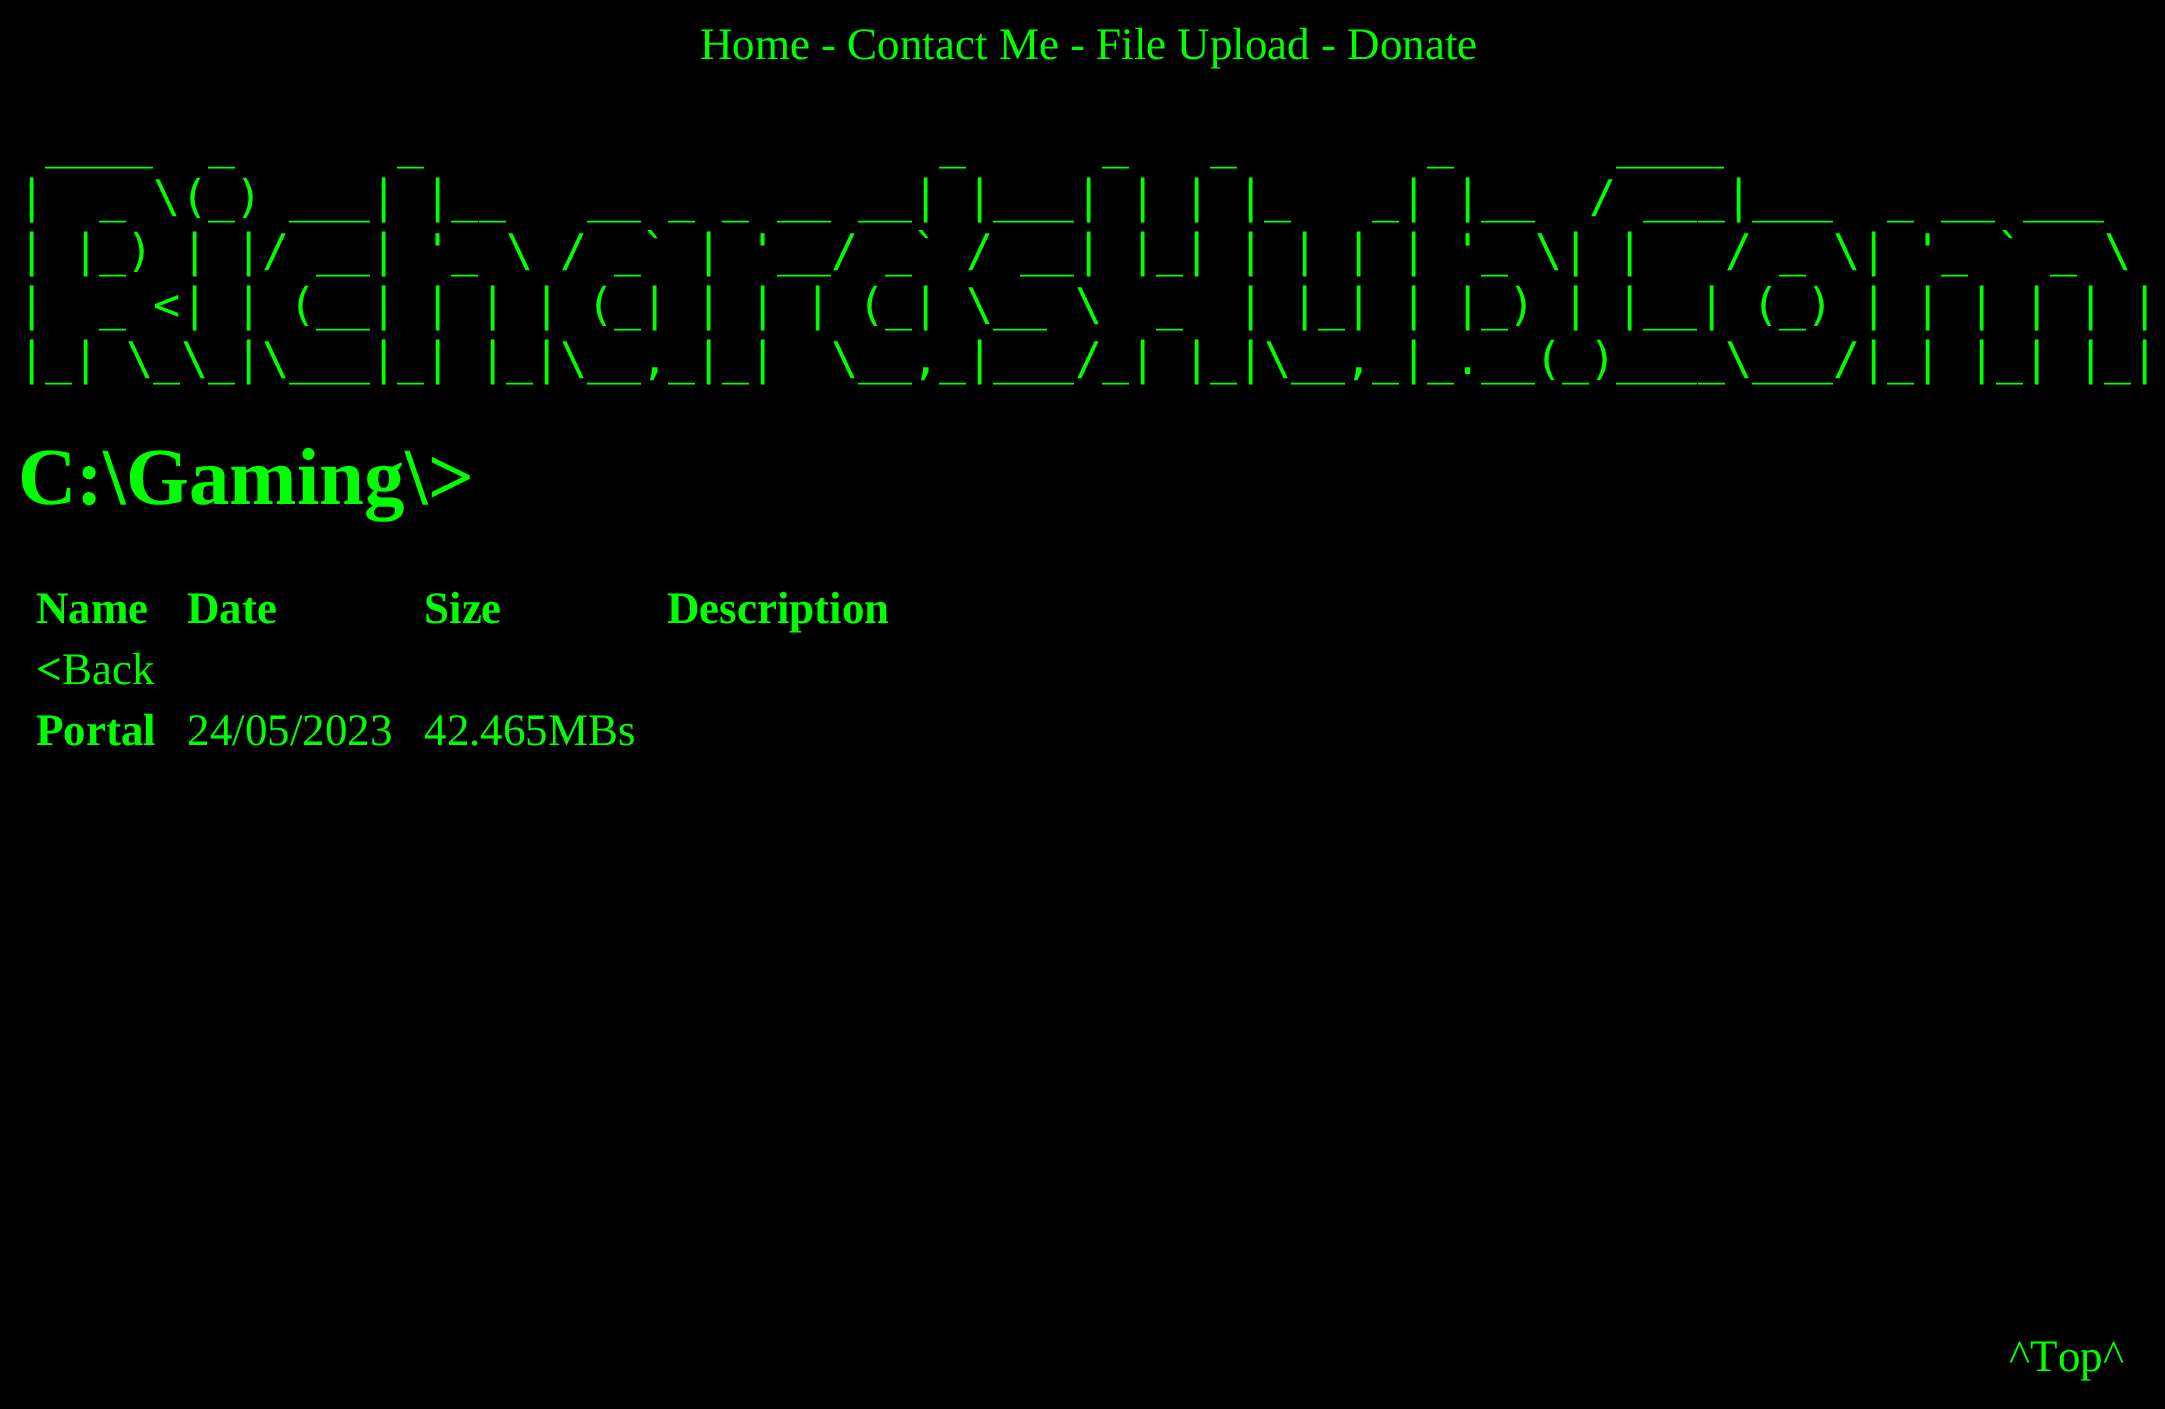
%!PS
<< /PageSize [2165 1409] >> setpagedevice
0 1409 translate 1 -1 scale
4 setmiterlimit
0 setgray
0 0 2165 1409 rectfill
/LiberationSerif-Regular [45 0 0 -45 0 0] selectfont
0 1 0 setrgbcolor
700 59 moveto (Home - Contact Me - File Upload - Donate) show
/DejaVuSansMono-Regular [45 0 0 -45 0 0] selectfont
45 158 moveto (____  _      _                   _     _   _       _      ____) show
18 212 moveto (|  _ \\\(_\) ___| |__   __ _ _ __ __| |___| | | |_   _| |__  / ___|___  _ __ ___) show
18 266 moveto (| |_\) | |/ __| '_ \\ / _` | '__/ _` / __| |_| | | | | '_ \\| |   / _ \\| '_ ` _ \\) show
18 320 moveto (|  _ <| | \(__| | | | \(_| | | | \(_| \\__ \\  _  | |_| | |_\) | |__| \(_\) | | | | | |) show
18 374 moveto (|_| \\_\\_|\\___|_| |_|\\__,_|_|  \\__,_|___/_| |_|\\__,_|_.__\(_\)____\\___/|_| |_| |_|) show
/LiberationSerif-Bold [81 0 0 -81 0 0] selectfont
18 504 moveto (C:\\Gaming\\>) show
/LiberationSerif-Bold [45 0 0 -45 0 0] selectfont
36 623 moveto (Name) show
187 623 moveto (Date) show
424 623 moveto (Size) show
667 623 moveto (Description) show
36 684 moveto (<) show
/LiberationSerif-Regular [45 0 0 -45 0 0] selectfont
62 684 moveto (Back) show
/LiberationSerif-Bold [45 0 0 -45 0 0] selectfont
36 745 moveto (Portal) show
/LiberationSerif-Regular [45 0 0 -45 0 0] selectfont
187 745 moveto (24/05/2023) show
424 745 moveto (42.465MBs) show
2009 1371 moveto (^Top^) show
showpage
